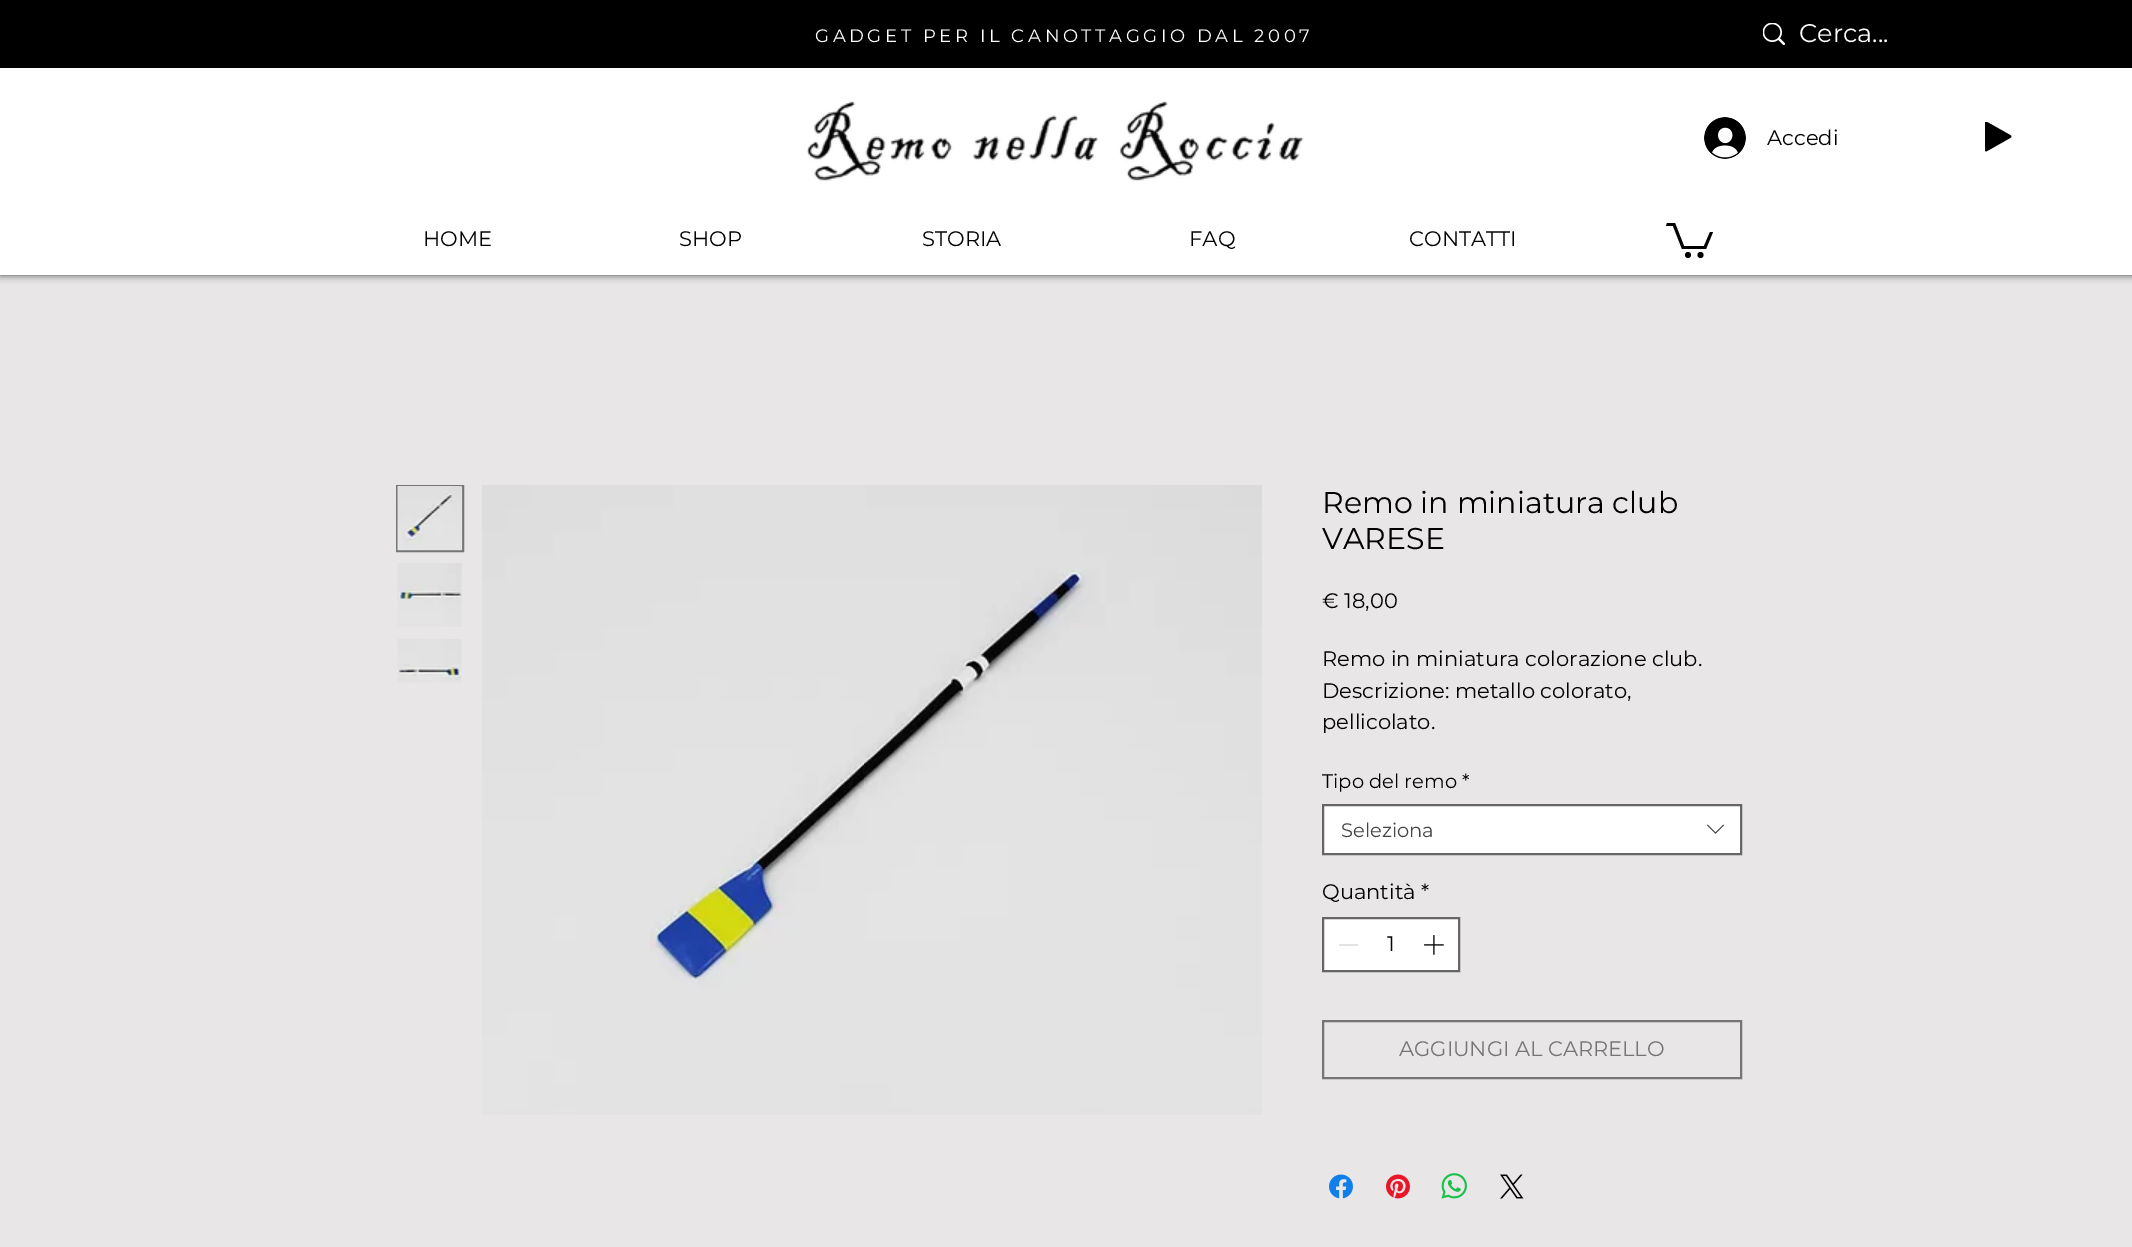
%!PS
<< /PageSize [2132 1247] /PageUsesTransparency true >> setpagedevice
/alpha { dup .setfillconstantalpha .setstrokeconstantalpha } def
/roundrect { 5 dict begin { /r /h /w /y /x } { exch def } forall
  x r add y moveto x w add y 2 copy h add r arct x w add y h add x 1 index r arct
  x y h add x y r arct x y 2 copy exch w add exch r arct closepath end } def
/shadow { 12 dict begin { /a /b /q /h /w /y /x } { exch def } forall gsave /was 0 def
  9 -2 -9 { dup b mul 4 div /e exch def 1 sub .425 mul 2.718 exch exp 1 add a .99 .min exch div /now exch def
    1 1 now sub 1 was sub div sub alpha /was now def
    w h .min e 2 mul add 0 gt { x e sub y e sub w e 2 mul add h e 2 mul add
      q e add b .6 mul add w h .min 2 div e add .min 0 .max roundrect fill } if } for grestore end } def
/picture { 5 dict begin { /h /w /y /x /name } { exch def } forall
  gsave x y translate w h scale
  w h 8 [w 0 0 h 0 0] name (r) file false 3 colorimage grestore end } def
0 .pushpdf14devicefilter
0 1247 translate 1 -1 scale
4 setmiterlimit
0.91 0.902 0.902 setrgbcolor
0 0 2132 1247 rectfill
0 setgray
0 0 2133 275 0 4 0.7 shadow
1 setgray
0 68 2132 207 rectfill
0 setgray
0 0 2132 68 rectfill
/Montserrat-Regular [18 0 0 -18 0 0] selectfont
1 setgray
815 42 moveto 3.6 0 (GADGET PER IL CANOTTAGGIO DAL 2007) ashow
(img1.rgb) 1763 23 22 22 picture
/Montserrat-Regular [25.5 0 0 -25.5 0 0] selectfont
1799 42 moveto (Cerca...) show
(img2.rgb) 807 101 497 80 picture
(img3.rgb) 1704 117 42 42 picture
/Montserrat-Regular [21 0 0 -21 0 0] selectfont
0 setgray
1767 145 moveto (Accedi) show
(img4.rgb) 1985 122 27 30 picture
423 246 moveto (HOME) show
679 246 moveto (SHOP) show
922 246 moveto (STORIA) show
1189 246 moveto (FАQ) show
1409 246 moveto (CONTATTI) show
newpath 1713 232 moveto 1706 249 lineto 1682 249 lineto 1673 226 lineto 1666 226 lineto 1667 223 lineto 1675 223 lineto 1684 246 lineto 1704 246 lineto 1710 232 lineto fill
newpath 1700.5 255 3 0 360 arc closepath fill
newpath 1688 255 3 0 360 arc closepath fill
0.459 setgray
2 setlinewidth
397 486 66 65 rectstroke
(img5.rgb) 397 486 66 65 picture
(img6.rgb) 397 563 65 64 picture
(img7.rgb) 397 639 65 44 picture
(img8.rgb) 482 485 780 630 picture
/Montserrat-Regular [30 0 0 -30 0 0] selectfont
0 setgray
1322 513 moveto (Remo in miniatura club) show
1322 549 moveto (VARESE) show
/Montserrat-Regular [21 0 0 -21 0 0] selectfont
1322 608 moveto (€ 18,00) show
1322 666 moveto (Remo in miniatura colorazione club.) show
1322 698 moveto (Descrizione: metallo colorato,) show
1322 729 moveto (pellicolato.) show
/Montserrat-Regular [19.5 0 0 -19.5 0 0] selectfont
1322 788 moveto (Tipo del remo) show
1462 788 moveto (*) show
1 setgray
newpath 1323 805 moveto 1741 805 lineto 1741 854 lineto 1323 854 lineto closepath gsave fill grestore
0.4 setgray
stroke
0.267 setgray
1341 837 moveto (Seleziona) show
(img9.rgb) 1707 824 17 10 picture
/Montserrat-Regular [21 0 0 -21 0 0] selectfont
0 setgray
1322 899 moveto (Quantità) show
1421 899 moveto (*) show
1 setgray
newpath 1323 918 moveto 1459 918 lineto 1459 971 lineto 1323 971 lineto closepath gsave fill grestore
0.4 setgray
stroke
0.89 setgray
1339 944 19 2 rectfill
0 setgray
1387 951 moveto (1) show
(img10.rgb) 1424 935 20 20 picture
0.459 setgray
1323 1021 418 57 rectstroke
1399 1056 moveto (AGGIUNGI AL CARRELLO) show
(img11.rgb) 1329 1174 24 25 picture
(img12.rgb) 1386 1174 24 25 picture
(img13.rgb) 1441 1173 26 26 picture
(img14.rgb) 1500 1174 24 25 picture
.poppdf14devicefilter showpage
